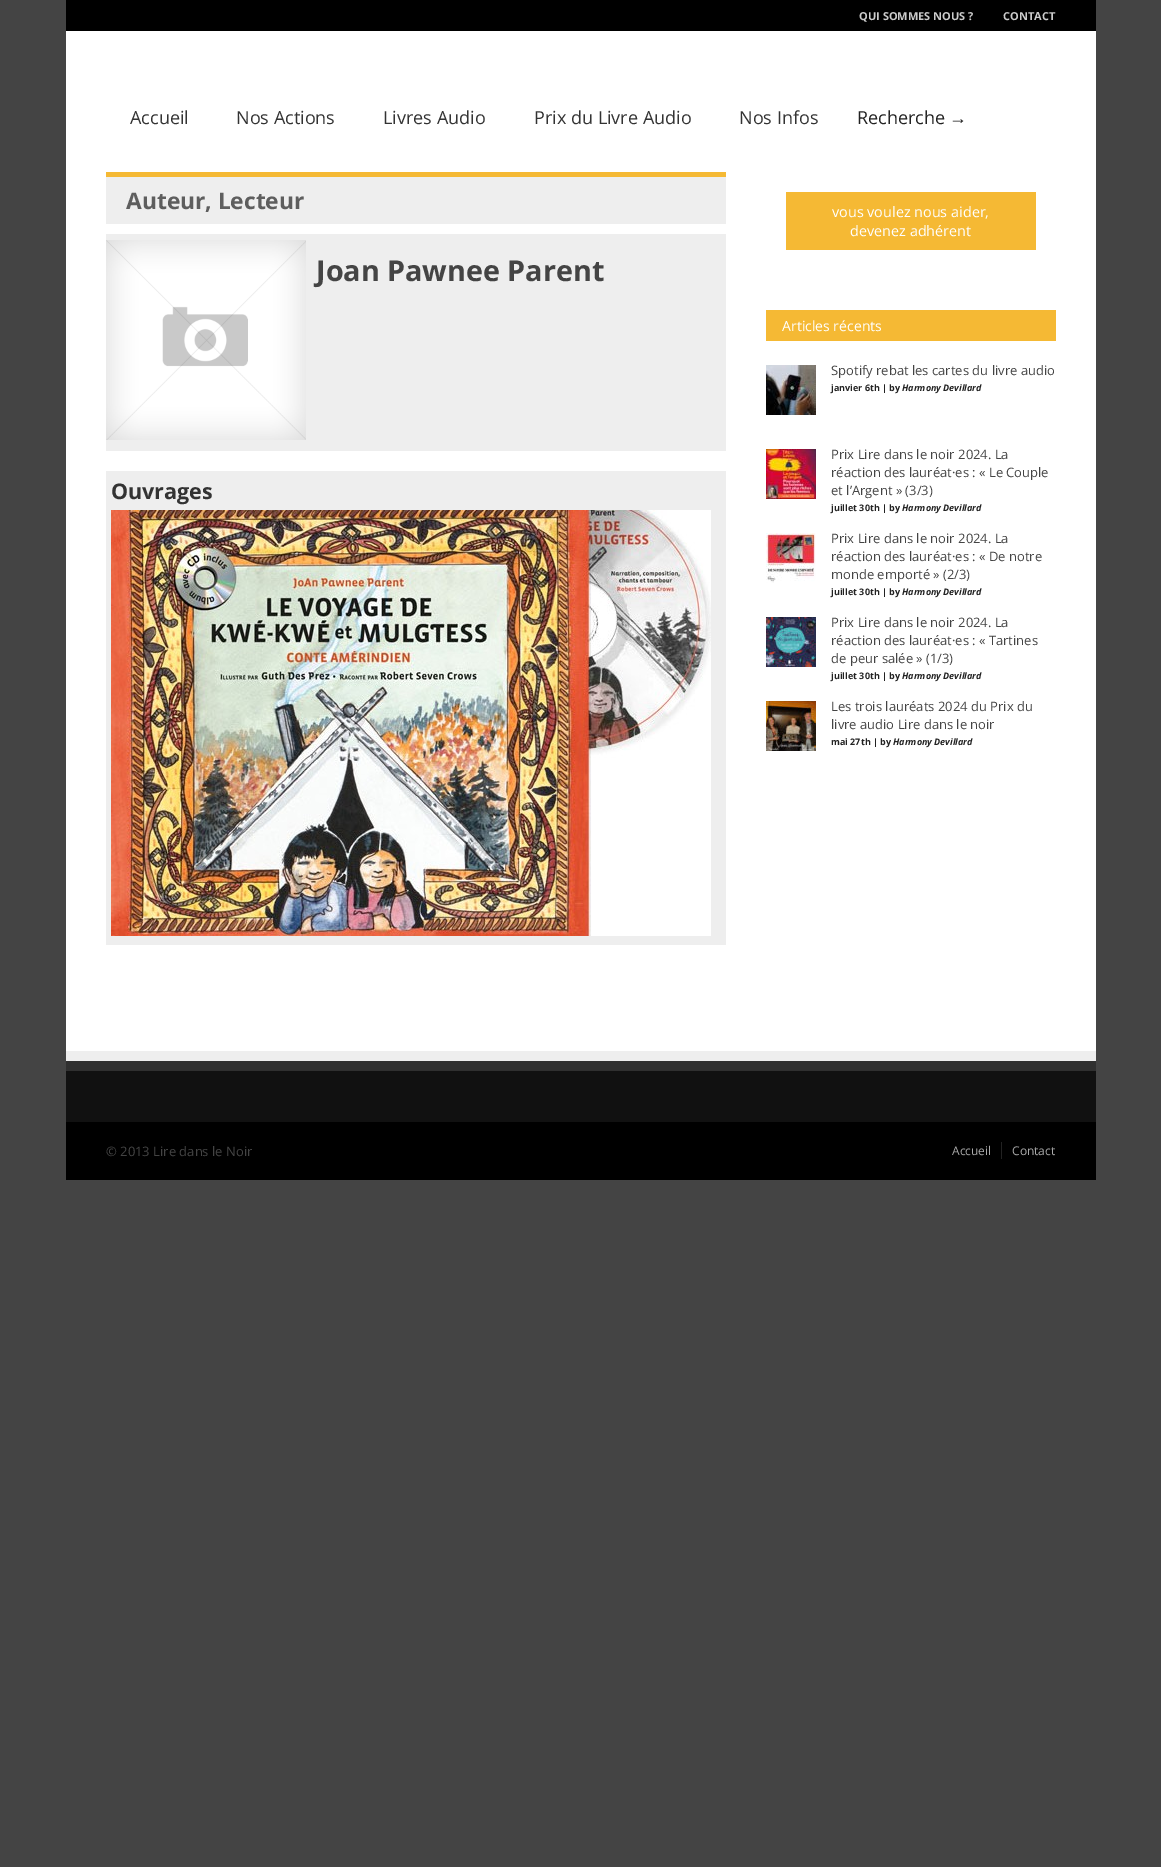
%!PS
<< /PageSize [1161 1867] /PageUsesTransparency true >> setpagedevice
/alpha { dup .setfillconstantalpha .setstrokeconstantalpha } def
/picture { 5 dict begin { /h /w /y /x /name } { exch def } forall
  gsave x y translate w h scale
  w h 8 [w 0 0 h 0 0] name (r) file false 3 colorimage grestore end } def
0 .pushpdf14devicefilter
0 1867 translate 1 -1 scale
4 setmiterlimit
0.267 setgray
0 0 1161 1867 rectfill
0 setgray
66 0 1030 31 rectfill
/OpenSans-Bold [11 0 0 -11 0 0] selectfont
0.8 setgray
859 20 moveto (QUI SOMMES NOUS ?) show
1003 20 moveto (CONTACT) show
1 setgray
66 31 1030 1030 rectfill
/OpenSans-Regular [18 0 0 -18 0 0] selectfont
0.2 setgray
130 124 moveto (Accueil) show
236 124 moveto (Nos Actions) show
383 124 moveto (Livres Audio) show
534 124 moveto (Prix du Livre Audio) show
739 124 moveto (Nos Infos) show
0.133 setgray
857 124 moveto (Recherche) show
/LiberationSans-Regular [18 0 0 -18 0 0] selectfont
949 124 moveto (→) show
0.933 setgray
106 177 620 47 rectfill
0.961 0.725 0.204 setrgbcolor
106 172 620 5 rectfill
/OpenSans-Bold [22.75 0 0 -22.75 0 0] selectfont
0.369 setgray
126 209 moveto (Auteur, Lecteur) show
0.933 setgray
106 234 620 217 rectfill
(img1.rgb) 106 240 200 200 picture
/OpenSans-Bold [28.75 0 0 -28.75 0 0] selectfont
0.267 setgray
316 281 moveto (Joan Pawnee Parent) show
0.933 setgray
106 471 620 474 rectfill
/OpenSans-Bold [21.5 0 0 -21.5 0 0] selectfont
0.2 setgray
111 499 moveto (Ouvrages) show
(img2.rgb) 111 510 600 426 picture
0.961 0.725 0.204 setrgbcolor
786 192 250 58 rectfill
/OpenSans-Regular [14.4 0 0 -14.4 0 0] selectfont
1 setgray
832 217 moveto (vous voulez nous aider,) show
850 236 moveto (devenez adhérent) show
0.961 0.725 0.204 setrgbcolor
766 310 290 31 rectfill
/OpenSans-Regular [14 0 0 -14 0 0] selectfont
1 setgray
782 331 moveto (Articles récents) show
(img3.rgb) 766 365 50 50 picture
/OpenSans-Regular [13 0 0 -13 0 0] selectfont
0.267 setgray
831 375 moveto (Spotify rebat les cartes du livre audio) show
/OpenSans-Bold [9 0 0 -9 0 0] selectfont
0.133 setgray
831 391 moveto (janvier 6th | by) show
/OpenSans-BoldItalic [9 0 0 -9 0 0] selectfont
902 391 moveto (Harmony Devillard) show
(img4.rgb) 766 449 50 50 picture
/OpenSans-Regular [13 0 0 -13 0 0] selectfont
0.267 setgray
831 459 moveto (Prix Lire dans le noir 2024. La) show
831 477 moveto (réaction des lauréat·es : « Le Couple) show
831 495 moveto (et l’Argent » \(3/3\)) show
/OpenSans-Bold [9 0 0 -9 0 0] selectfont
0.133 setgray
831 511 moveto (juillet 30th | by) show
/OpenSans-BoldItalic [9 0 0 -9 0 0] selectfont
902 511 moveto (Harmony Devillard) show
(img5.rgb) 766 533 50 50 picture
/OpenSans-Regular [13 0 0 -13 0 0] selectfont
0.267 setgray
831 543 moveto (Prix Lire dans le noir 2024. La) show
831 561 moveto (réaction des lauréat·es : « De notre) show
831 579 moveto (monde emporté » \(2/3\)) show
/OpenSans-Bold [9 0 0 -9 0 0] selectfont
0.133 setgray
831 595 moveto (juillet 30th | by) show
/OpenSans-BoldItalic [9 0 0 -9 0 0] selectfont
902 595 moveto (Harmony Devillard) show
(img6.rgb) 766 617 50 50 picture
/OpenSans-Regular [13 0 0 -13 0 0] selectfont
0.267 setgray
831 627 moveto (Prix Lire dans le noir 2024. La) show
831 645 moveto (réaction des lauréat·es : « Tartines) show
831 663 moveto (de peur salée » \(1/3\)) show
/OpenSans-Bold [9 0 0 -9 0 0] selectfont
0.133 setgray
831 679 moveto (juillet 30th | by) show
/OpenSans-BoldItalic [9 0 0 -9 0 0] selectfont
902 679 moveto (Harmony Devillard) show
(img7.rgb) 766 701 50 50 picture
/OpenSans-Regular [13 0 0 -13 0 0] selectfont
0.267 setgray
831 711 moveto (Les trois lauréats 2024 du Prix du) show
831 729 moveto (livre audio Lire dans le noir) show
/OpenSans-Bold [9 0 0 -9 0 0] selectfont
0.133 setgray
831 745 moveto (mai 27th | by) show
/OpenSans-BoldItalic [9 0 0 -9 0 0] selectfont
893 745 moveto (Harmony Devillard) show
0.067 setgray
66 1061 1030 61 rectfill
0.2 alpha
0.667 setgray
66 1051 1030 20 rectfill
1 alpha
0 setgray
66 1122 1030 58 rectfill
/OpenSans-Regular [13 0 0 -13 0 0] selectfont
0.267 setgray
106 1156 moveto (© 2013 Lire dans le Noir) show
/OpenSans-Regular [12 0 0 -12 0 0] selectfont
0.667 setgray
952 1155 moveto (Accueil) show
0.133 setgray
1001 1142 1 17 rectfill
0.667 setgray
1012 1155 moveto (Contact) show
.poppdf14devicefilter showpage
